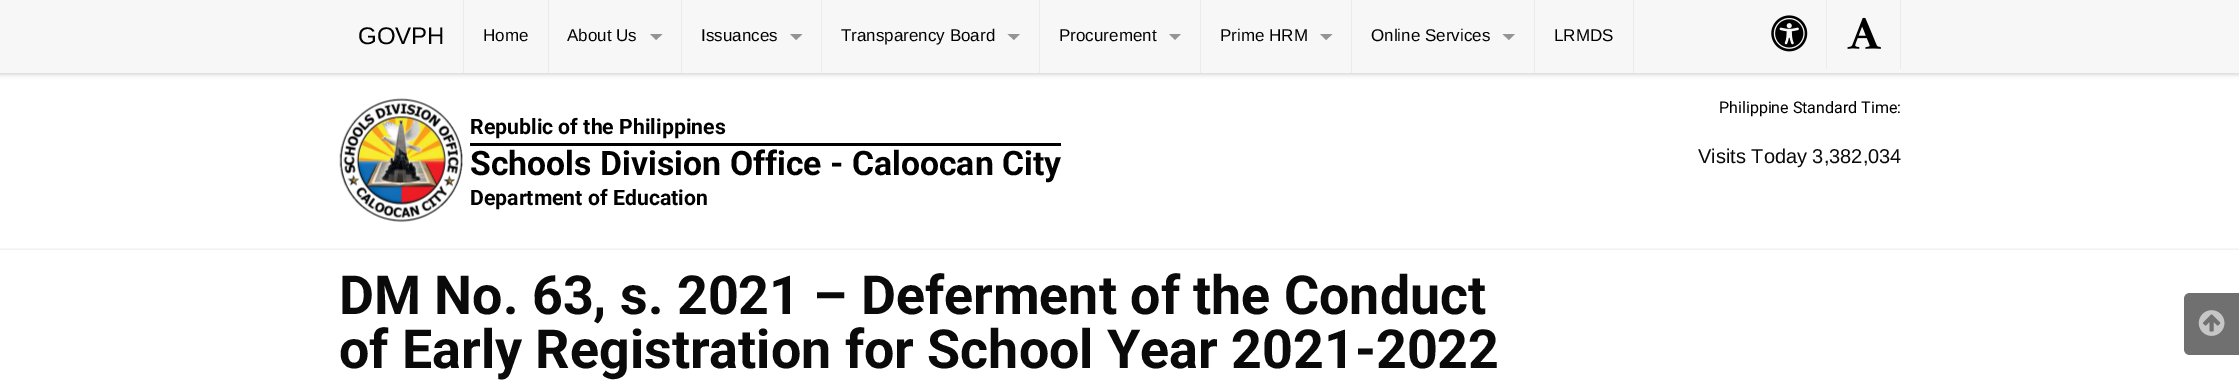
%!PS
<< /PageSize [2239 385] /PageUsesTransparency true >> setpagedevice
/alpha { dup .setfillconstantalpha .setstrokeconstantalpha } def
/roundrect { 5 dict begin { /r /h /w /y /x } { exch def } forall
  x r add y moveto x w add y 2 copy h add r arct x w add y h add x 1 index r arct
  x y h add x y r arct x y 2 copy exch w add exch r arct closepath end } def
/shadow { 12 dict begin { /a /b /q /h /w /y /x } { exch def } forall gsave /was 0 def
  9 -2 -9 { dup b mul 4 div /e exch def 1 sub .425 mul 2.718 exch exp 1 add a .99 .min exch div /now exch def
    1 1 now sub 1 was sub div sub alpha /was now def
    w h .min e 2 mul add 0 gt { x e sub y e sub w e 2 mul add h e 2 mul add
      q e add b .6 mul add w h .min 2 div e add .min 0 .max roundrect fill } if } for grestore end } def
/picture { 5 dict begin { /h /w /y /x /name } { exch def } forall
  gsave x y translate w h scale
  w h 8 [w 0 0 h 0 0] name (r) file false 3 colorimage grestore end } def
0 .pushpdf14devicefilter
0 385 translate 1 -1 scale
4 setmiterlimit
1 setgray
0 0 2239 385 rectfill
0 setgray
0 1 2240 73 0 2.5 0.2 shadow
0.969 setgray
0 0 2239 73 rectfill
0.922 setgray
463 0 1 73 rectfill
/LiberationSans-Regular [24 0 0 -24 0 0] selectfont
0 setgray
358 44 moveto (GOVPH) show
0.922 setgray
548 0 1 73 rectfill
/LiberationSans-Regular [17 0 0 -17 0 0] selectfont
0 setgray
483 41 moveto (Home) show
0.922 setgray
681 0 1 73 rectfill
0 setgray
567 41 moveto (About Us) show
0.58 setgray
newpath 650 34 moveto 662.5 34 lineto 656 40 lineto closepath fill
0.922 setgray
821 0 1 73 rectfill
0 setgray
701 41 moveto (Issuances) show
0.58 setgray
newpath 790 34 moveto 802.5 34 lineto 796 40 lineto closepath fill
0.922 setgray
1039 0 1 73 rectfill
0 setgray
841 41 moveto (Transparency Board) show
0.58 setgray
newpath 1007.5 34 moveto 1020 34 lineto 1014 40 lineto closepath fill
0.922 setgray
1200 0 1 73 rectfill
0 setgray
1059 41 moveto (Procurement) show
0.58 setgray
newpath 1169 34 moveto 1181 34 lineto 1175 40 lineto closepath fill
0.922 setgray
1351 0 1 73 rectfill
0 setgray
1220 41 moveto (Prime HRM) show
0.58 setgray
newpath 1320 34 moveto 1332.5 34 lineto 1326 40 lineto closepath fill
0.922 setgray
1534 0 1 73 rectfill
0 setgray
1371 41 moveto (Online Services) show
0.58 setgray
newpath 1502.5 34 moveto 1515 34 lineto 1509 40 lineto closepath fill
0.922 setgray
1633 0 1 73 rectfill
0 setgray
1554 41 moveto (LRMDS) show
0.922 setgray
1826 0 1 69 rectfill
(img1.rgb) 1771 15 37 37 picture
1900 0 1 69 rectfill
(img2.rgb) 1847 17 34 32 picture
(img3.rgb) 339 98 124 124 picture
/Roboto-Bold [21.25 0 0 -21.25 0 0] selectfont
0 setgray
470 134 moveto (Republic of the Philippines) show
470 143 591 3 rectfill
/Roboto-Bold [33.75 0 0 -33.75 0 0] selectfont
470 175 moveto (Schools Division Office - Caloocan City) show
/Roboto-Bold [21.25 0 0 -21.25 0 0] selectfont
470 205 moveto (Department of Education) show
/Roboto-Regular [16 0 0 -16 0 0] selectfont
1719 113 moveto (Philippine Standard Time:) show
/LiberationSans-Regular [20 0 0 -20 0 0] selectfont
0.039 setgray
1698 163 moveto (Visits Today 3,382,034) show
0.969 setgray
0 248 2239 1 rectfill
0.949 setgray
0 249 2239 1 rectfill
/Roboto-Bold [53.8 0 0 -53.8 0 0] selectfont
0.039 setgray
339 314 moveto (DM No. 63, s. 2021 – Deferment of the Conduct) show
339 368 moveto (of Early Registration for School Year 2021-2022) show
0.439 setgray
newpath 2190 293 moveto 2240 293 lineto 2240 355 lineto 2190 355 lineto 2186.5 355 2184 352.5 2184 349 curveto 2184 299 lineto 2184 295.5 2186.5 293 2190 293 curveto closepath fill
(img4.rgb) 2198 310 27 26 picture
.poppdf14devicefilter showpage
